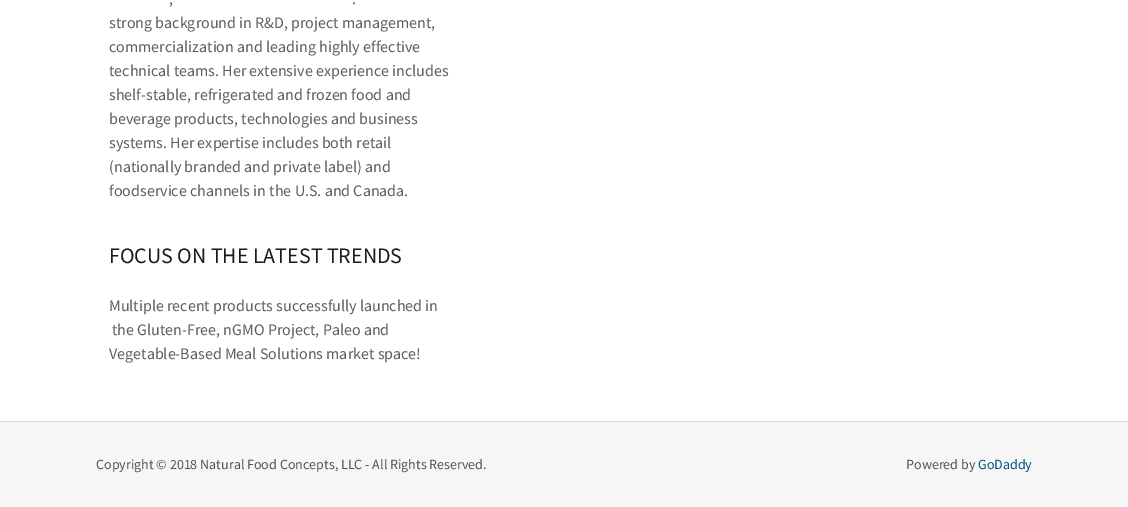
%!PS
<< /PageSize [1128 507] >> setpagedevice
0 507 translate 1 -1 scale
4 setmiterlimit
0.965 setgray
0 0 1128 507 rectfill
1 setgray
0 0 1128 421 rectfill
/SourceSansPro-Regular [16 0 0 -16 0 0] selectfont
0.369 setgray
169 4 moveto (,) show
352 4 moveto (.) show
109 28 moveto (strong background in R&D, project management,) show
109 52 moveto (commercialization and leading highly effective) show
109 76 moveto (technical teams. Her extensive experience includes) show
109 100 moveto (shelf-stable, refrigerated and frozen food and) show
109 124 moveto (beverage products, technologies and business) show
109 148 moveto (systems. Her expertise includes both retail) show
109 172 moveto (\(nationally branded and private label\) and) show
109 196 moveto (foodservice channels in the U.S. and Canada.) show
/SourceSansPro-Regular [22 0 0 -22 0 0] selectfont
0.106 setgray
109 263 moveto (FOCUS ON THE LATEST TRENDS) show
/SourceSansPro-Regular [16 0 0 -16 0 0] selectfont
0.369 setgray
109 311 moveto (Multiple recent products successfully launched in) show
112 335 moveto (the Gluten-Free, nGMO Project, Paleo and) show
109 359 moveto (Vegetable-Based Meal Solutions market space!) show
0.855 setgray
0 421 1128 1 rectfill
/SourceSansPro-Regular [14 0 0 -14 0 0] selectfont
0.322 setgray
96 469 moveto (Copyright © 2018 Natural Food Concepts, LLC - All Rights Reserved.) show
906 469 moveto (Powered by) show
0.008 0.325 0.494 setrgbcolor
978 469 moveto (GoDaddy) show
showpage
